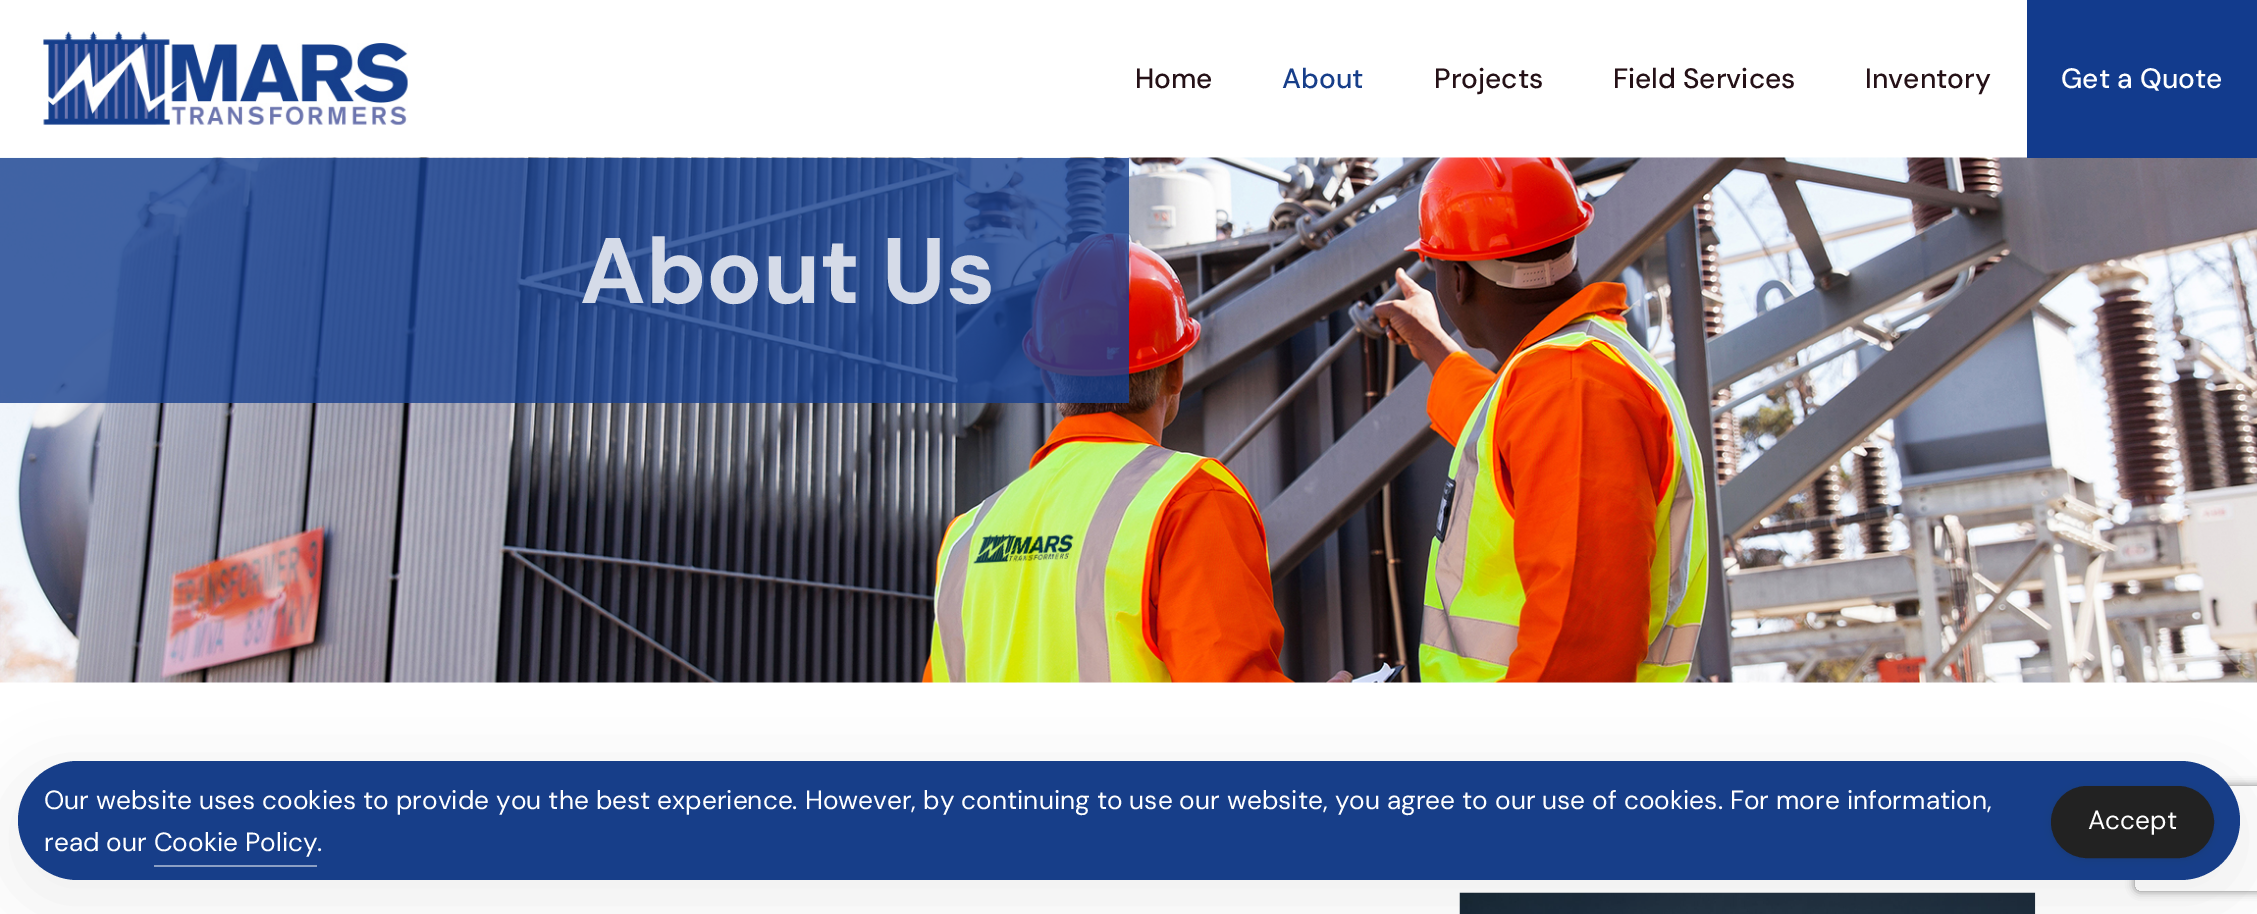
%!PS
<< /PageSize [2257 914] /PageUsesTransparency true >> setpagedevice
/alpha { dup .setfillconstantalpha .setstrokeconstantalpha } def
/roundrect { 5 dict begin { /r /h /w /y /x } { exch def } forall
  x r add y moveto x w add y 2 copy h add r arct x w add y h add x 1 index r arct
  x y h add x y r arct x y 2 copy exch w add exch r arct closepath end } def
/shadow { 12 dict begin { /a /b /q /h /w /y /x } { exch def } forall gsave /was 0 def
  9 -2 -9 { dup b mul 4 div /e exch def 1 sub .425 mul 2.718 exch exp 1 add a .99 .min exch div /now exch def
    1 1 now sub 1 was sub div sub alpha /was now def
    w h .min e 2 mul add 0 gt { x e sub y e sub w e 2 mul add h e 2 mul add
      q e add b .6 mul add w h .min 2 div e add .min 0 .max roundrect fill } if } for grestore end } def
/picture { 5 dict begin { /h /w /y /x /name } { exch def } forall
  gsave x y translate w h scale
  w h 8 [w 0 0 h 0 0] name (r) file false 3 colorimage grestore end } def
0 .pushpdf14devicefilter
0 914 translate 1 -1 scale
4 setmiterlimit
1 setgray
0 0 2257 914 rectfill
(img1.rgb) 43 31 365 94 picture
/DMSans-Medium [28 0 0 -28 0 0] selectfont
0.145 0.067 0.09 setrgbcolor
1135 88 moveto (Home) show
0.09 0.243 0.537 setrgbcolor
1282 88 moveto (About) show
0.145 0.067 0.09 setrgbcolor
1434 88 moveto (Projects) show
1613 88 moveto (Field Services) show
1865 88 moveto (Inventory) show
(img2.rgb) 0 157 2257 526 picture
0.071 0.231 0.553 setrgbcolor
2027 0 230 158 rectfill
1 setgray
2061 88 moveto (Get a Quote) show
0.8 alpha
0.086 0.247 0.557 setrgbcolor
0 158 1129 245 rectfill
/DMSans-Bold [92.75 0 0 -92.75 0 0] selectfont
1 alpha
0.835 0.859 0.91 setrgbcolor
580 303 moveto (About Us) show
(img3.rgb) 1459 892 577 22 picture
0 setgray
0 761 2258 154 77 35 0.05 shadow
gsave
newpath 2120 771 moveto 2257 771 lineto 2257 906 lineto 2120 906 lineto closepath 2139 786 moveto 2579 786 lineto 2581 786 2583 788 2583 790 curveto 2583 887 lineto 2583 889 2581 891 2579 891 curveto 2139 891 lineto 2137 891 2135 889 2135 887 curveto 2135 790 lineto 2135 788 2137 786 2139 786 curveto closepath eoclip newpath
0.502 setgray
2135 786 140 105 4 4.5 1 shadow
grestore
0.09 0.243 0.537 setrgbcolor
18 761 2222 119 59.5 roundrect fill
/DMSans-Regular [26.25 0 0 -26.25 0 0] selectfont
1 setgray
44 809 moveto (Our website uses cookies to provide you the best experience. However, by continuing to use our website, you agree to our use of cookies. For more information,) show
44 851 moveto (read our Cookie Policy) show
317 851 moveto (.) show
0.545 0.624 0.769 setrgbcolor
154 865 163 2 rectfill
0 setgray
2051 788 163 71 35.5 3.5 0.1 shadow
0.133 setgray
2052 787 161 70 35 roundrect gsave fill grestore
2 setlinewidth
stroke
1 setgray
2088 829 moveto (Accept) show
.poppdf14devicefilter showpage
